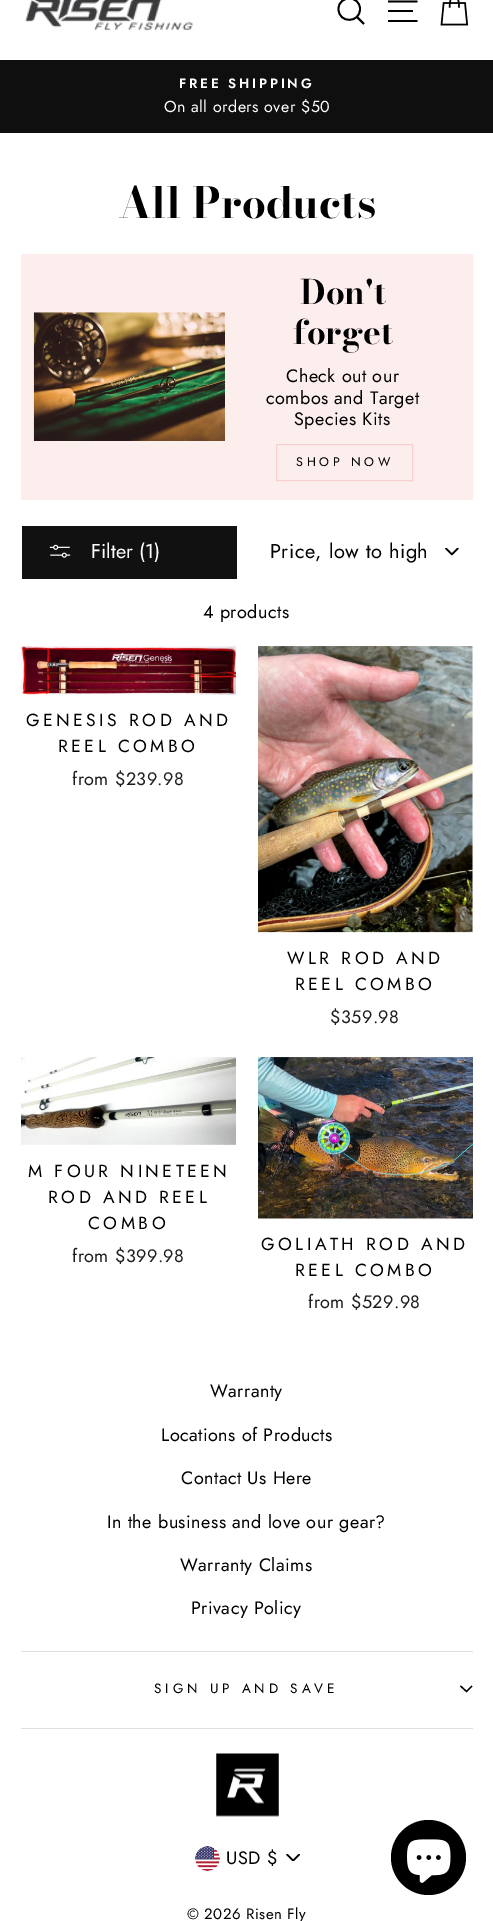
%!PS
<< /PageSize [493 1921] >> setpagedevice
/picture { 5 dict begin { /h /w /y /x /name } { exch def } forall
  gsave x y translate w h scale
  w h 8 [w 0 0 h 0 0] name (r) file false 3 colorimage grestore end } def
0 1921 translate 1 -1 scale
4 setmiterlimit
1 setgray
0 0 493 1921 rectfill
0.992 0.933 0.933 setrgbcolor
21 254 452 246 rectfill
(img1.rgb) 25 0 168 31 picture
0 setgray
1.8 setlinewidth
newpath 360 9 moveto 360 23.5 338.5 23.5 338.5 9 curveto 338.5 -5 360 -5 360 9 curveto closepath 364 24 moveto 357 17 lineto stroke
newpath 388 1.5 moveto 417.5 1.5 lineto 388 11 moveto 413 11 lineto 388 21 moveto 417.5 21 lineto stroke
(img2.rgb) 440 0 29 26 picture
0.059 setgray
0 60 493 73 rectfill
/Jost-SemiBold [13.5 0 0 -13.5 0 0] selectfont
1 setgray
179 88 moveto 2.75 0 (FREE SHIPPING) ashow
/Jost-Regular [16 0 0 -16 0 0] selectfont
164 112 moveto 0.45 0 (On all orders over $50) ashow
/BodoniModa-Bold [42.5 0 0 -42.5 0 0] selectfont
0 setgray
118 218 moveto (All Products) show
(img3.rgb) 33 312 192 129 picture
/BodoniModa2-Bold [33.5 0 0 -33.5 0 0] selectfont
300 304 moveto (Don't) show
293 344 moveto (forget) show
/Jost-Regular [18 0 0 -18 0 0] selectfont
286 382 moveto 0.45 0 (Check out our) ashow
266 404 moveto 0.45 0 (combos and Target) ashow
294 425 moveto 0.45 0 (Species Kits) ashow
0.976 0.812 0.812 setrgbcolor
1 setlinewidth
276.5 444.5 136 36 rectstroke
/Jost-Regular [12.5 0 0 -12.5 0 0] selectfont
0 setgray
296 466 moveto 3.75 0 (SHOP NOW) ashow
0.067 setgray
22 526 215 53 rectfill
(img4.rgb) 49 544 22 14 picture
/Jost-Regular [20 0 0 -20 0 0] selectfont
1 setgray
91 558 moveto (Filter \(1\)) show
(img5.rgb) 445 548 14 8 picture
0 setgray
270 558 moveto 0.5 0 (Price, low to high) ashow
/Jost-Regular [18 0 0 -18 0 0] selectfont
203 618 moveto 0.45 0 (4 products) ashow
(img6.rgb) 21 646 215 49 picture
/Jost-Regular [17.5 0 0 -17.5 0 0] selectfont
26 726 moveto 3.5 0 (GENESIS ROD AND) ashow
58 752 moveto 3.5 0 (REEL COMBO) ashow
/Jost-Regular [18 0 0 -18 0 0] selectfont
0.11 0.114 0.114 setrgbcolor
72 785 moveto 0.45 0 (from $239.98) ashow
(img7.rgb) 258 646 215 287 picture
/Jost-Regular [17.5 0 0 -17.5 0 0] selectfont
0 setgray
287 964 moveto 3.5 0 (WLR ROD AND) ashow
295 990 moveto 3.5 0 (REEL COMBO) ashow
/Jost-Regular [18 0 0 -18 0 0] selectfont
0.11 0.114 0.114 setrgbcolor
330 1023 moveto 0.45 0 ($359.98) ashow
(img8.rgb) 21 1057 215 88 picture
/Jost-Regular [17.5 0 0 -17.5 0 0] selectfont
0 setgray
28 1177 moveto 3.5 0 (M FOUR NINETEEN) ashow
48 1203 moveto 3.5 0 (ROD AND REEL) ashow
88 1229 moveto 3.5 0 (COMBO) ashow
/Jost-Regular [18 0 0 -18 0 0] selectfont
0.11 0.114 0.114 setrgbcolor
72 1262 moveto 0.45 0 (from $399.98) ashow
(img9.rgb) 258 1057 215 162 picture
/Jost-Regular [17.5 0 0 -17.5 0 0] selectfont
0 setgray
261 1250 moveto 3.5 0 (GOLIATH ROD AND) ashow
295 1276 moveto 3.5 0 (REEL COMBO) ashow
/Jost-Regular [18 0 0 -18 0 0] selectfont
0.11 0.114 0.114 setrgbcolor
308 1308 moveto 0.45 0 (from $529.98) ashow
0 setgray
210 1397 moveto 0.45 0 (Warranty) ashow
161 1441 moveto 0.45 0 (Locations of Products) ashow
181 1484 moveto 0.45 0 (Contact Us Here) ashow
107 1528 moveto 0.45 0 (In the business and love our gear?) ashow
180 1571 moveto 0.45 0 (Warranty Claims) ashow
191 1614 moveto 0.45 0 (Privacy Policy) ashow
0.878 setgray
21 1651 452 1 rectfill
/Jost-Regular [13.5 0 0 -13.5 0 0] selectfont
0 setgray
154 1693 moveto 4 0 (SIGN UP AND SAVE) ashow
1.3 setlinewidth
newpath 460.5 1686 moveto 466.5 1691.5 lineto 472 1686 lineto stroke
0.878 setgray
21 1728 452 1 rectfill
(img10.rgb) 216 1753 63 64 picture
(img11.rgb) 286 1854 14 7 picture
(img12.rgb) 195 1846 25 25 picture
/Jost-Regular [18 0 0 -18 0 0] selectfont
0 setgray
226 1864 moveto 0.45 0 (USD $) ashow
/Jost-Regular [15 0 0 -15 0 0] selectfont
187 1919 moveto 0.45 0 (© 2026 Risen Fly) ashow
newpath 428.5 1857.5 37.5 0 360 arc closepath fill
(img13.rgb) 407 1839 44 44 picture
showpage
